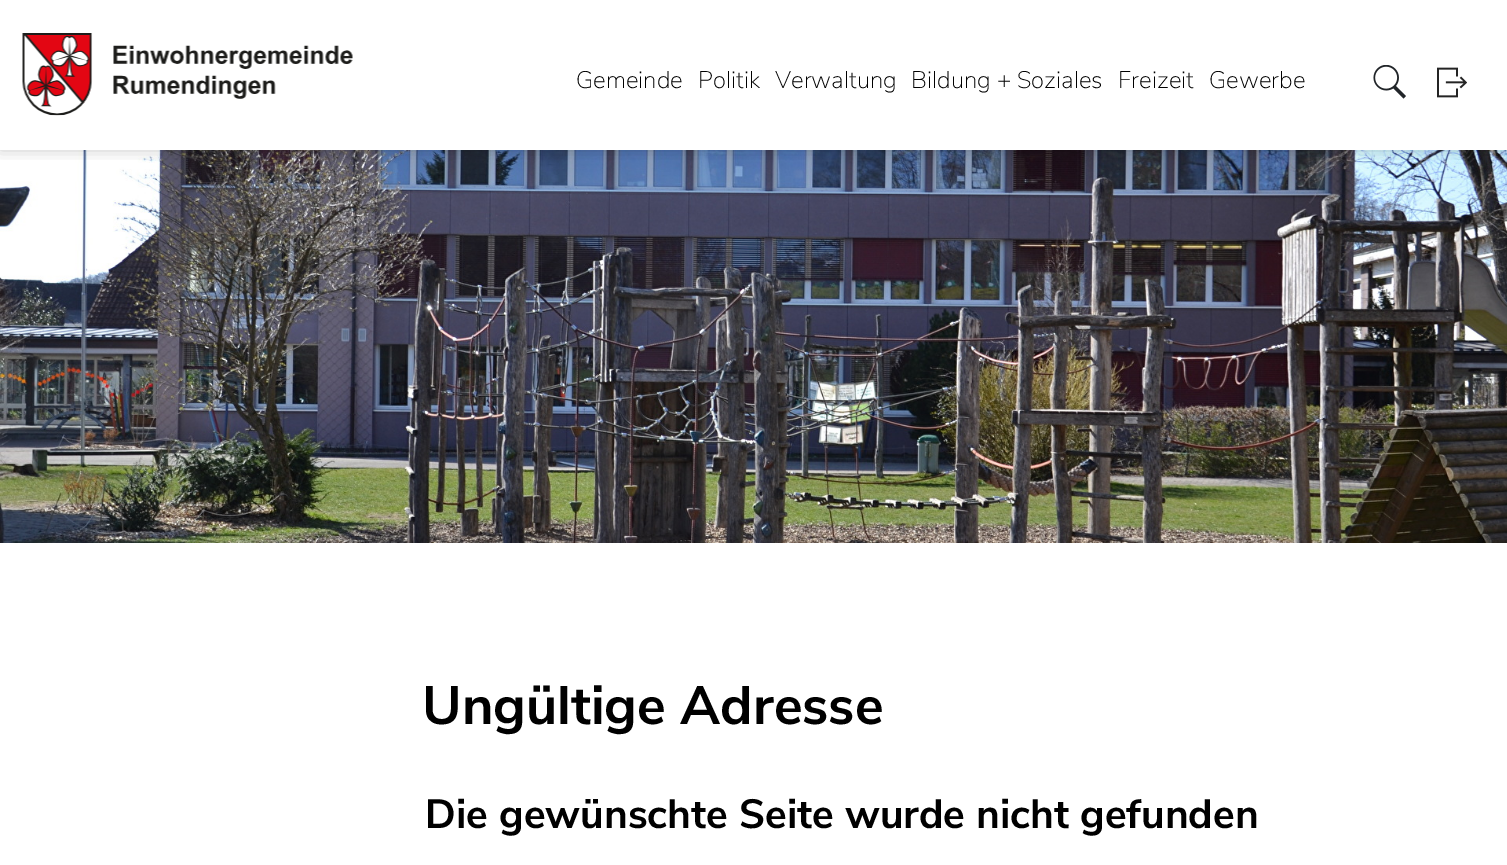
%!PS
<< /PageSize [1507 865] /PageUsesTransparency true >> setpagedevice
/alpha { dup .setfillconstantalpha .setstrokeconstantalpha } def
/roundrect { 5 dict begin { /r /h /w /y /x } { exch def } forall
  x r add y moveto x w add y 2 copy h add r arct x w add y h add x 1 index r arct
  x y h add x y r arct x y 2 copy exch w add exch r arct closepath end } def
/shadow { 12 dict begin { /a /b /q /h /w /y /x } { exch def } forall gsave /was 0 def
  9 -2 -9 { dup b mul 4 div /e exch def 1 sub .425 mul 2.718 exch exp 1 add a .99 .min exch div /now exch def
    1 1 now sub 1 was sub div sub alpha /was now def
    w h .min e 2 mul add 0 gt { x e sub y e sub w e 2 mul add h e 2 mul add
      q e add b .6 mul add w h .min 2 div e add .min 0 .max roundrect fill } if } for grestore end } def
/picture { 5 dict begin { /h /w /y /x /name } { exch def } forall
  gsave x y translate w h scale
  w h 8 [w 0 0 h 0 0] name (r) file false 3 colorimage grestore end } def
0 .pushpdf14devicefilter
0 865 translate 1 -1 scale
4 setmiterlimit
1 setgray
0 0 1507 865 rectfill
(img4.rgb) 0 150 1507 393 picture
gsave
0 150 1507 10 rectclip
0 setgray
0 0 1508 150 0 7.5 0.2 shadow
grestore
(img1.rgb) 22 33 331 83 picture
/NunitoSans-ExtraLight [24 0 0 -24 0 0] selectfont
0 setgray
576 88 moveto (Gemeinde) show
698 88 moveto (Politik) show
775 88 moveto (Verwaltung) show
911 88 moveto (Bildung + Soziales) show
1118 88 moveto (Freizeit) show
1209 88 moveto (Gewerbe) show
(img2.rgb) 1373 65 33 34 picture
(img3.rgb) 1437 67 30 31 picture
/NunitoSans-Bold [54 0 0 -54 0 0] selectfont
422 724 moveto (Ungültige Adresse) show
/NunitoSans-Bold [40.8 0 0 -40.8 0 0] selectfont
425 828 moveto (Die gewünschte Seite wurde nicht gefunden) show
.poppdf14devicefilter showpage
